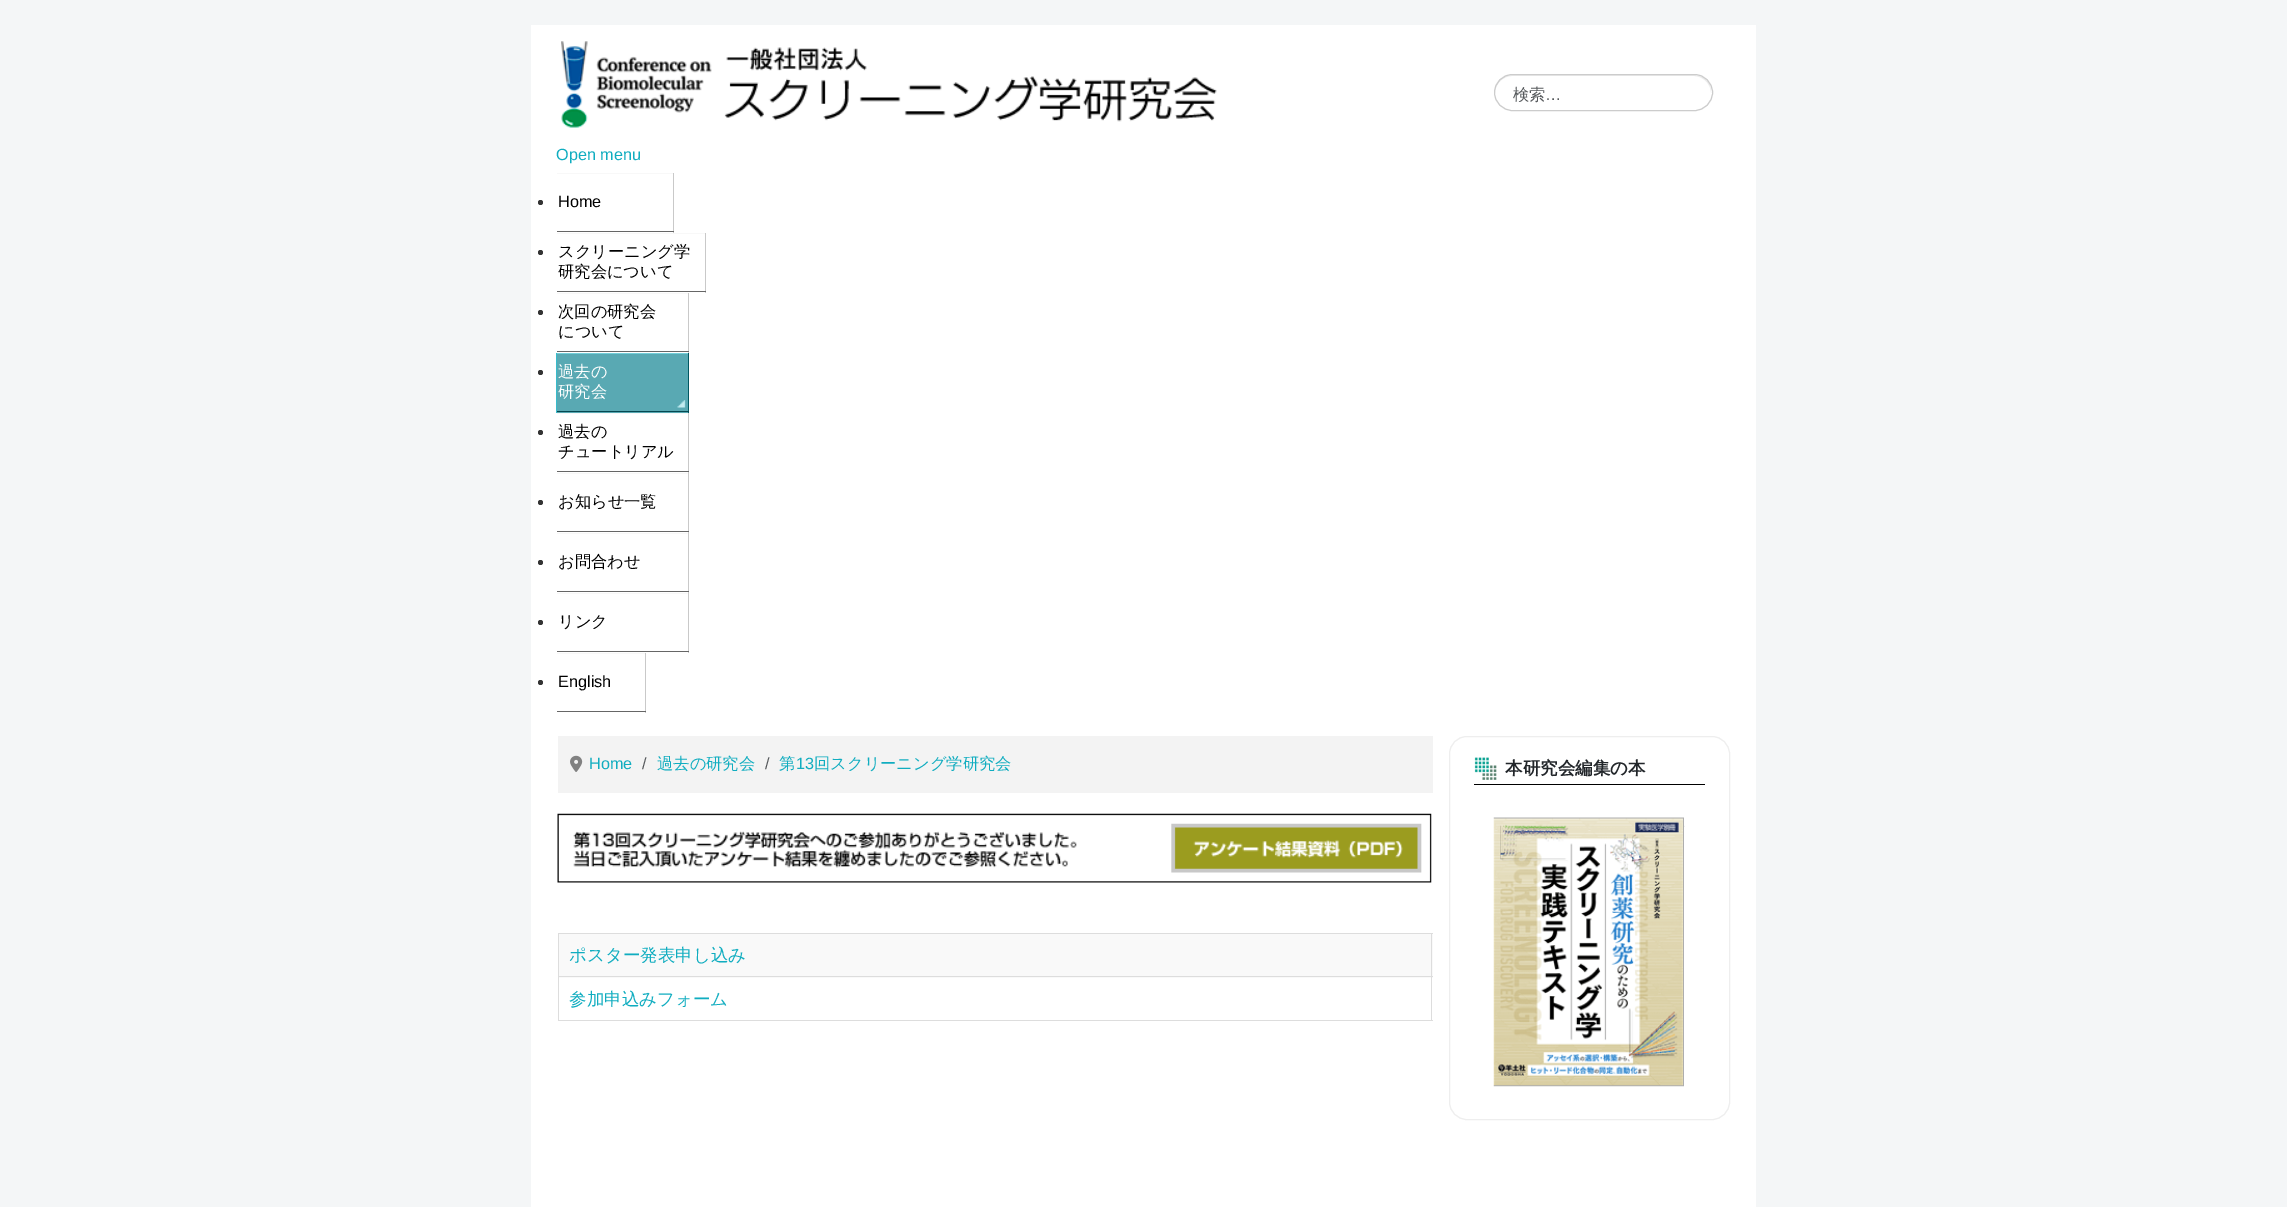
%!PS
<< /PageSize [2287 1207] >> setpagedevice
/roundrect { 5 dict begin { /r /h /w /y /x } { exch def } forall
  x r add y moveto x w add y 2 copy h add r arct x w add y h add x 1 index r arct
  x y h add x y r arct x y 2 copy exch w add exch r arct closepath end } def
/picture { 5 dict begin { /h /w /y /x /name } { exch def } forall
  gsave x y translate w h scale
  w h 8 [w 0 0 h 0 0] name (r) file false 3 colorimage grestore end } def
0 1207 translate 1 -1 scale
4 setmiterlimit
0.957 0.965 0.969 setrgbcolor
0 0 2287 1207 rectfill
1 setgray
531 25 1225 1182 rectfill
(img1.rgb) 561 41 656 87 picture
0.925 setgray
newpath 1512 76 moveto 1694 76 lineto 1703 76 1711 84 1711 93 curveto 1712 68 1676 75 1663 75 curveto 1543 75 lineto 1530 75 1494 68 1495 93 curveto 1495 84 1503 76 1512 76 curveto closepath fill
0.8 setgray
1494.5 74.5 218 36 18 roundrect stroke
/WenQuanYiZenHei-Medium [16.25 0 0 -16.25 0 0] selectfont
0.337 0.349 0.361 setrgbcolor
1513 100 moveto (検索) show
/LiberationSans-Regular [16.25 0 0 -16.25 0 0] selectfont
1545 100 moveto (…) show
0.063 0.678 0.753 setrgbcolor
556 160 moveto (Open menu) show
0.973 setgray
556 173 118 1 rectfill
0.788 setgray
673 173 1 60 rectfill
0.4 setgray
556 231 118 1 rectfill
1 setgray
556 173 1 60 rectfill
0.2 setgray
newpath 540.5 202.5 2.5 0 360 arc closepath fill
0 setgray
558 207 moveto (Home) show
0.973 setgray
556 233 150 1 rectfill
0.788 setgray
705 233 1 60 rectfill
0.4 setgray
556 291 150 1 rectfill
1 setgray
556 233 1 60 rectfill
0.2 setgray
newpath 540.5 252.5 2.5 0 360 arc closepath fill
/WenQuanYiZenHei-Medium [16.25 0 0 -16.25 0 0] selectfont
0 setgray
558 257 moveto (スクリーニング学) show
558 277 moveto (研究会について) show
0.973 setgray
556 293 133 1 rectfill
0.788 setgray
688 293 1 60 rectfill
0.4 setgray
556 351 133 1 rectfill
1 setgray
556 293 1 60 rectfill
0.2 setgray
newpath 540.5 312.5 2.5 0 360 arc closepath fill
0 setgray
558 317 moveto (次回の研究会) show
558 337 moveto (について) show
0.349 0.663 0.702 setrgbcolor
557 354 131 59 rectfill
(img2.rgb) 677 400 9 8 picture
0.447 0.812 0.855 setrgbcolor
556 353 133 1 rectfill
0.004 0.345 0.384 setrgbcolor
688 353 1 60 rectfill
0.016 0.282 0.314 setrgbcolor
556 411 133 1 rectfill
0.22 0.733 0.796 setrgbcolor
556 353 1 60 rectfill
0.2 setgray
newpath 540.5 372.5 2.5 0 360 arc closepath fill
1 setgray
558 377 moveto (過去の) show
558 397 moveto (研究会) show
0.973 setgray
556 413 133 1 rectfill
0.788 setgray
688 413 1 60 rectfill
0.4 setgray
556 471 133 1 rectfill
1 setgray
556 413 1 60 rectfill
0.2 setgray
newpath 540.5 432.5 2.5 0 360 arc closepath fill
0 setgray
558 437 moveto (過去の) show
558 457 moveto (チュートリアル) show
0.973 setgray
556 473 133 1 rectfill
0.788 setgray
688 473 1 60 rectfill
0.4 setgray
556 531 133 1 rectfill
1 setgray
556 473 1 60 rectfill
0.2 setgray
newpath 540.5 502.5 2.5 0 360 arc closepath fill
0 setgray
558 507 moveto (お知らせ一覧) show
0.973 setgray
556 533 133 1 rectfill
0.788 setgray
688 533 1 60 rectfill
0.4 setgray
556 591 133 1 rectfill
1 setgray
556 533 1 60 rectfill
0.2 setgray
newpath 540.5 562.5 2.5 0 360 arc closepath fill
0 setgray
558 567 moveto (お問合わせ) show
0.973 setgray
556 593 133 1 rectfill
0.788 setgray
688 593 1 60 rectfill
0.4 setgray
556 651 133 1 rectfill
1 setgray
556 593 1 60 rectfill
0.2 setgray
newpath 540.5 622.5 2.5 0 360 arc closepath fill
0 setgray
558 627 moveto (リンク) show
0.973 setgray
556 653 90 1 rectfill
0.788 setgray
645 653 1 60 rectfill
0.4 setgray
556 711 90 1 rectfill
1 setgray
556 653 1 60 rectfill
0.2 setgray
newpath 540.5 682.5 2.5 0 360 arc closepath fill
/LiberationSans-Regular [16.25 0 0 -16.25 0 0] selectfont
0 setgray
558 687 moveto (English) show
0.953 setgray
558 736 875 57 rectfill
(img3.rgb) 570 755 13 17 picture
0.063 0.678 0.753 setrgbcolor
589 769 moveto (Home) show
0.337 0.349 0.361 setrgbcolor
642 769 moveto (/) show
/WenQuanYiZenHei-Medium [16.25 0 0 -16.25 0 0] selectfont
0.063 0.678 0.753 setrgbcolor
657 769 moveto (過去の研究会) show
/LiberationSans-Regular [16.25 0 0 -16.25 0 0] selectfont
0.337 0.349 0.361 setrgbcolor
765 769 moveto (/) show
/WenQuanYiZenHei-Medium [16.25 0 0 -16.25 0 0] selectfont
0.063 0.678 0.753 setrgbcolor
779 769 moveto (第) show
/LiberationSans-Regular [16.25 0 0 -16.25 0 0] selectfont
796 769 moveto (13) show
/WenQuanYiZenHei-Medium [16.25 0 0 -16.25 0 0] selectfont
814 769 moveto (回スクリーニング学研究会) show
(img4.rgb) 557 813 875 70 picture
0.976 setgray
559 934 874 44 rectfill
0.867 setgray
558 933 875 1 rectfill
558 976 875 1 rectfill
1431 976 1 45 rectfill
1431 933 1 45 rectfill
558 1020 875 1 rectfill
558 976 1 45 rectfill
558 933 1 45 rectfill
/WenQuanYiZenHei-Medium [17.5 0 0 -17.5 0 0] selectfont
0.063 0.678 0.753 setrgbcolor
569 961 moveto (ポスター発表申し込み) show
569 1005 moveto (参加申込みフォーム) show
0.933 setgray
1449.5 736.5 280 383 17.5 roundrect stroke
(img5.rgb) 1474 757 23 23 picture
0 setgray
1474 784 231 1 rectfill
/WenQuanYiZenHei-Bold [17.5 0 0 -17.5 0 0] selectfont
0.133 0.149 0.165 setrgbcolor
1505 774 moveto (本研究会編集の本) show
(img6.rgb) 1493 817 192 270 picture
showpage
